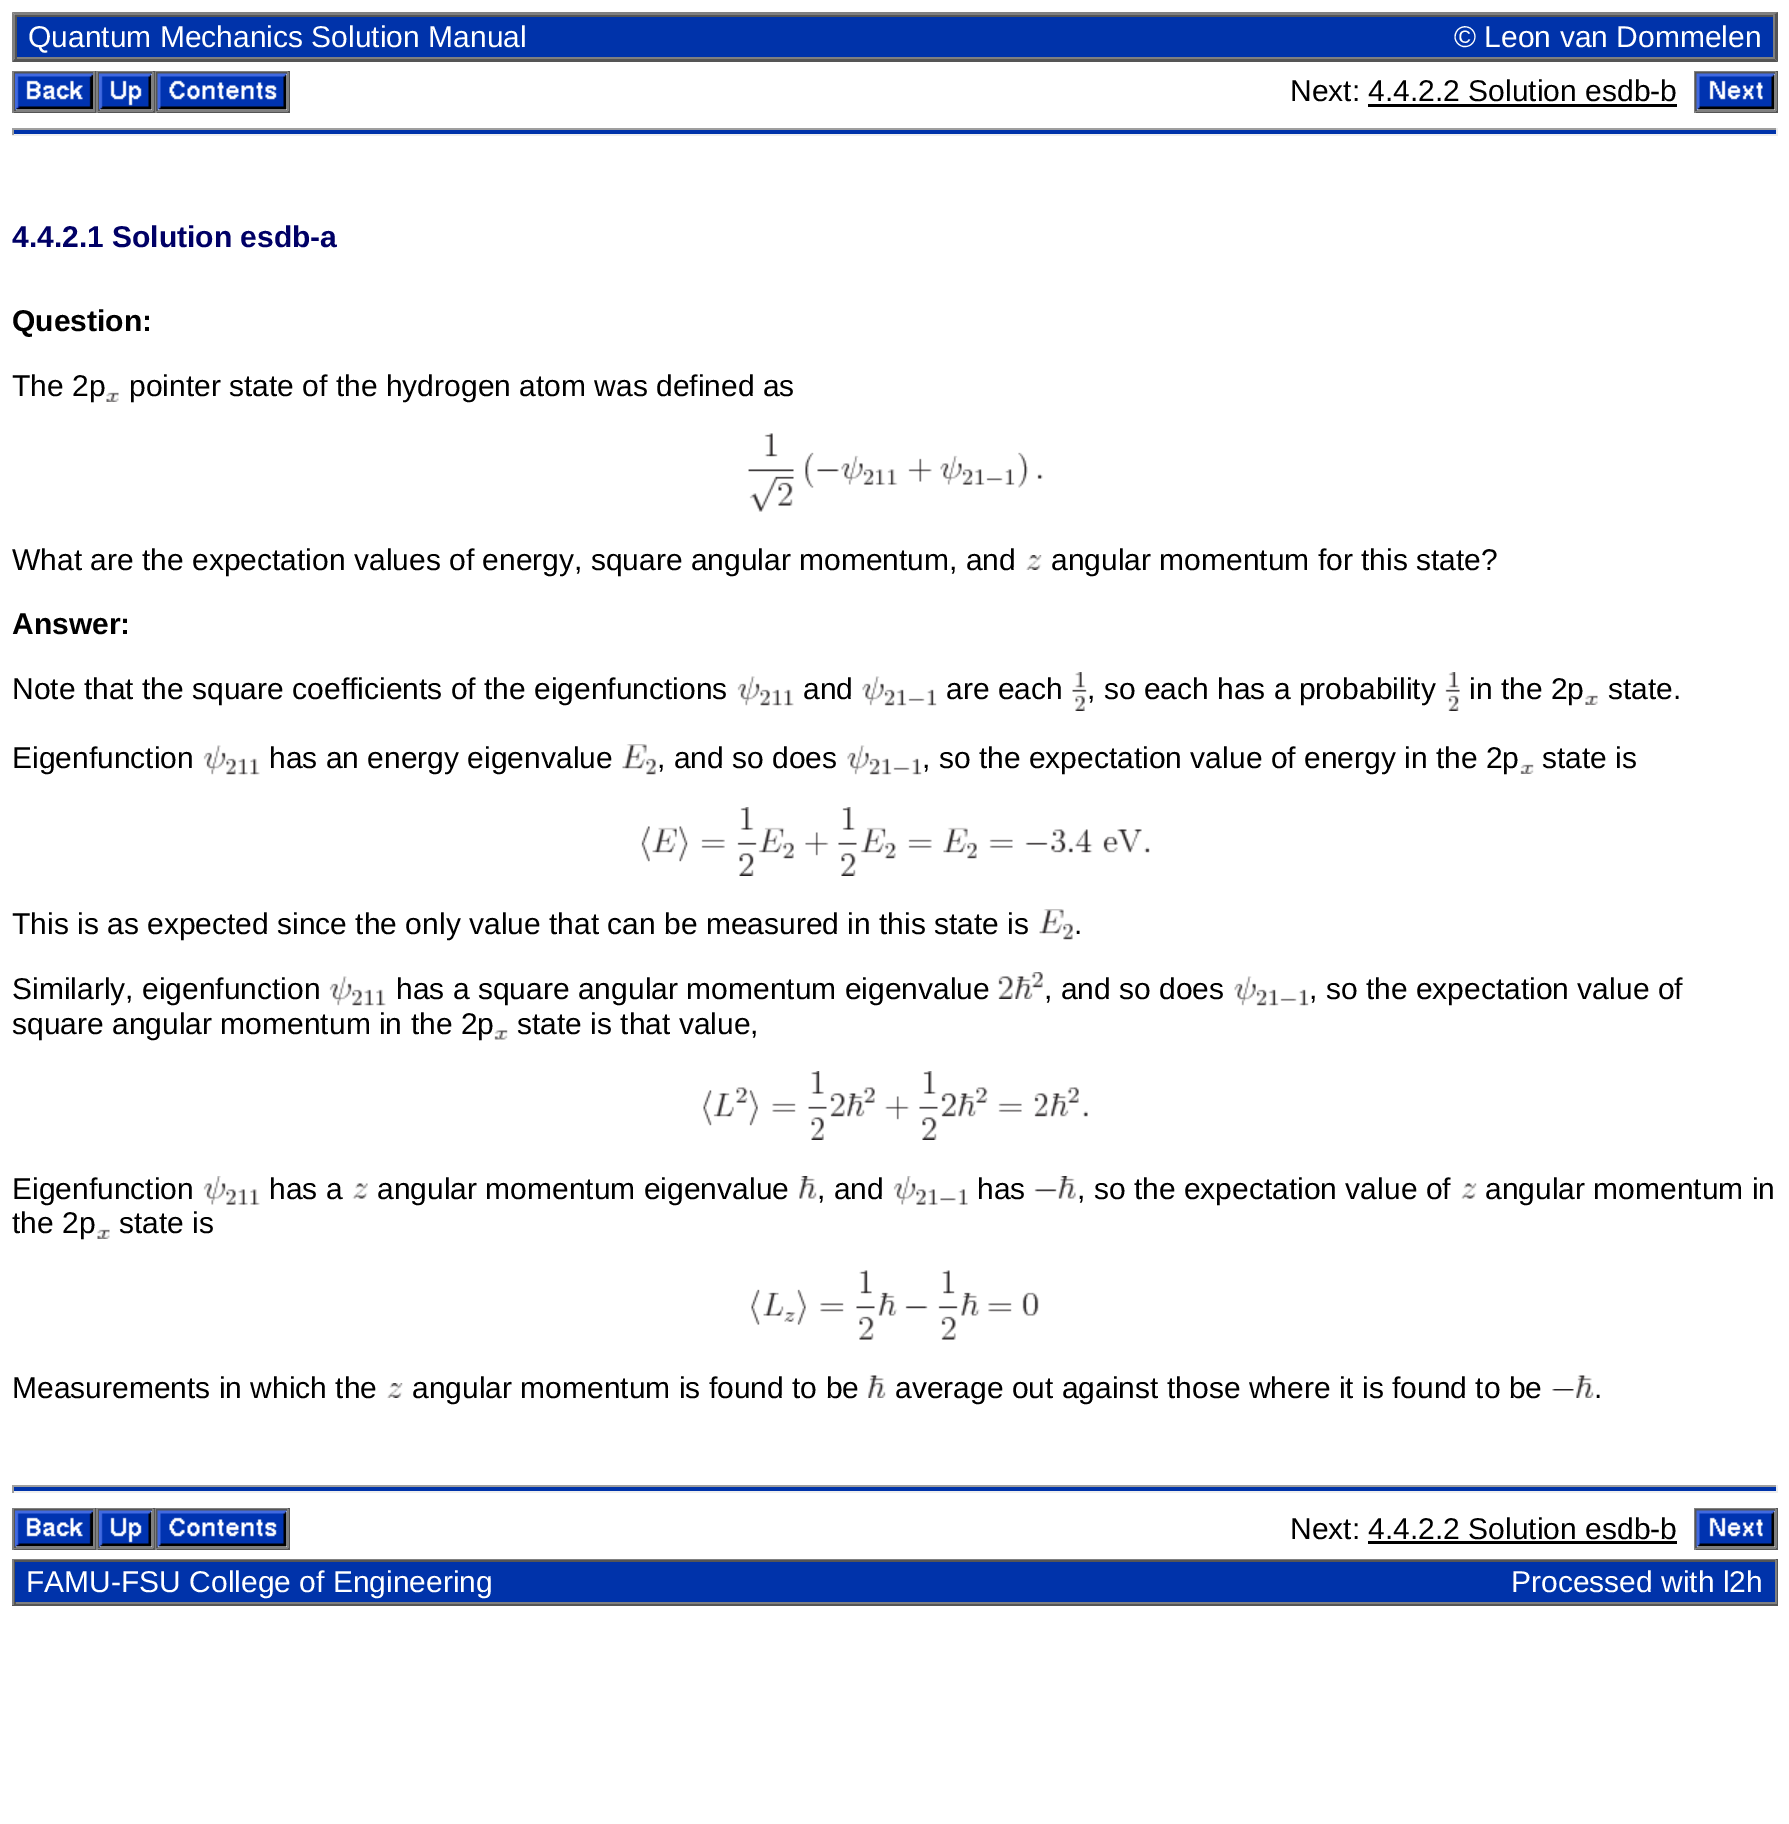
%!PS
<< /PageSize [1789 1824] >> setpagedevice
/picture { 5 dict begin { /h /w /y /x /name } { exch def } forall
  gsave x y translate w h scale
  w h 8 [w 0 0 h 0 0] name (r) file false 3 colorimage grestore end } def
0 1824 translate 1 -1 scale
4 setmiterlimit
1 setgray
0 0 1789 1824 rectfill
0.502 setgray
newpath 12 12 moveto 1778 12 lineto 1774 15 lineto 15 15 lineto closepath fill
0.333 setgray
newpath 1778 12 moveto 1778 62 lineto 1774 58 lineto 1774 15 lineto closepath fill
newpath 1778 62 moveto 12 62 lineto 15 58 lineto 1774 58 lineto closepath fill
0.502 setgray
newpath 12 62 moveto 12 12 lineto 15 15 lineto 15 58 lineto closepath fill
0.333 setgray
15 15 1760 2 rectfill
0.502 setgray
1773 15 2 44 rectfill
15 57 1760 2 rectfill
0.333 setgray
15 15 2 44 rectfill
0 0.2 0.667 setrgbcolor
17 17 1756 40 rectfill
/LiberationSans-Regular [30 0 0 -30 0 0] selectfont
1 setgray
28 47 moveto (Quantum Mechanics Solution Manual) show
1454 47 moveto (© Leon van Dommelen) show
0.502 setgray
12 71 278 1 rectfill
0.333 setgray
95 71 1 42 rectfill
12 111 84 2 rectfill
0.502 setgray
12 71 2 42 rectfill
0.333 setgray
14 72 81 2 rectfill
0.502 setgray
93 72 2 39 rectfill
14 110 81 2 rectfill
0.333 setgray
14 72 2 39 rectfill
(img1.rgb) 15 73 78 37 picture
153 71 2 42 rectfill
96 111 59 2 rectfill
0.502 setgray
96 71 2 42 rectfill
0.333 setgray
98 72 55 2 rectfill
0.502 setgray
152 72 2 39 rectfill
98 110 55 2 rectfill
0.333 setgray
98 72 2 39 rectfill
(img2.rgb) 99 73 53 37 picture
288 71 2 42 rectfill
155 111 135 2 rectfill
0.502 setgray
155 71 2 42 rectfill
0.333 setgray
156 72 132 2 rectfill
0.502 setgray
287 72 2 39 rectfill
156 110 132 2 rectfill
0.333 setgray
156 72 2 39 rectfill
(img3.rgb) 157 73 130 37 picture
0 setgray
1290 101 moveto (Next: 4.4.2.2 Solution esdb-b) show
1368 104 309 3 rectfill
0.502 setgray
1694 71 84 1 rectfill
0.333 setgray
1776 71 2 42 rectfill
1694 111 84 2 rectfill
0.502 setgray
1694 71 2 42 rectfill
0.333 setgray
1695 72 81 2 rectfill
0.502 setgray
1775 72 2 39 rectfill
1695 110 81 2 rectfill
0.333 setgray
1695 72 2 39 rectfill
(img4.rgb) 1696 73 79 37 picture
0 0.2 0.667 setrgbcolor
12 130 1766 4 rectfill
0.624 setgray
12 128 1766 2 rectfill
0.933 setgray
1776 128 2 7 rectfill
12 134 1766 2 rectfill
0.624 setgray
12 128 2 7 rectfill
/LiberationSans-Bold [30 0 0 -30 0 0] selectfont
0 0 0.4 setrgbcolor
12 247 moveto (4.4.2.1 Solution esdb-a) show
0 setgray
12 331 moveto (Question:) show
/LiberationSans-Regular [30 0 0 -30 0 0] selectfont
12 396 moveto (The 2p) show
(img5.rgb) 106 392 13 10 picture
129 396 moveto (pointer state of the hydrogen atom was defined as) show
(img6.rgb) 748 433 295 79 picture
12 570 moveto (What are the expectation values of energy, square angular momentum, and) show
(img7.rgb) 1026 555 16 15 picture
1051 570 moveto (angular momentum for this state?) show
/LiberationSans-Bold [30 0 0 -30 0 0] selectfont
12 634 moveto (Answer:) show
/LiberationSans-Regular [30 0 0 -30 0 0] selectfont
12 699 moveto (Note that the square coefficients of the eigenfunctions) show
(img8.rgb) 737 676 57 30 picture
803 699 moveto (and) show
(img9.rgb) 862 676 75 30 picture
946 699 moveto (are each) show
(img10.rgb) 1072 672 15 39 picture
1087 699 moveto (, so each has a probability) show
(img11.rgb) 1445 672 15 39 picture
1469 699 moveto (in the 2p) show
(img5.rgb) 1585 695 13 10 picture
1608 699 moveto (state.) show
12 768 moveto (Eigenfunction) show
(img12.rgb) 203 745 57 30 picture
269 768 moveto (has an energy eigenvalue) show
(img13.rgb) 622 744 34 31 picture
657 768 moveto (, and so does) show
(img9.rgb) 847 745 75 30 picture
922 768 moveto (, so the expectation value of energy in the 2p) show
(img14.rgb) 1520 764 14 10 picture
1542 768 moveto (state is) show
(img15.rgb) 641 807 509 69 picture
12 934 moveto (This is as expected since the only value that can be measured in this state is) show
(img16.rgb) 1039 909 34 31 picture
1074 934 moveto (.) show
12 999 moveto (Similarly, eigenfunction) show
(img12.rgb) 329 976 57 30 picture
396 999 moveto (has a square angular momentum eigenvalue) show
(img17.rgb) 998 972 45 27 picture
1044 999 moveto (, and so does) show
(img18.rgb) 1234 976 75 30 picture
1309 999 moveto (, so the expectation value of) show
12 1034 moveto (square angular momentum in the 2p) show
(img19.rgb) 494 1030 14 10 picture
517 1034 moveto (state is that value,) show
(img20.rgb) 703 1071 385 69 picture
12 1199 moveto (Eigenfunction) show
(img21.rgb) 203 1176 57 29 picture
269 1199 moveto (has a) show
(img22.rgb) 352 1183 16 16 picture
377 1199 moveto (angular momentum eigenvalue) show
(img23.rgb) 799 1176 18 23 picture
817 1199 moveto (, and) show
(img24.rgb) 893 1176 75 29 picture
977 1199 moveto (has) show
(img25.rgb) 1034 1189 23 3 picture
(img26.rgb) 1058 1176 18 23 picture
1077 1199 moveto (, so the expectation value of) show
(img27.rgb) 1461 1183 16 16 picture
1485 1199 moveto (angular momentum in) show
12 1233 moveto (the 2p) show
(img5.rgb) 97 1229 13 10 picture
119 1233 moveto (state is) show
(img28.rgb) 751 1270 288 70 picture
12 1398 moveto (Measurements in which the) show
(img29.rgb) 387 1383 16 15 picture
412 1398 moveto (angular momentum is found to be) show
(img30.rgb) 868 1375 18 23 picture
895 1398 moveto (average out against those where it is found to be) show
(img31.rgb) 1552 1389 22 2 picture
(img30.rgb) 1576 1375 18 23 picture
1594 1398 moveto (.) show
0 0.2 0.667 setrgbcolor
12 1487 1766 4 rectfill
0.624 setgray
12 1485 1766 2 rectfill
0.933 setgray
1776 1485 2 8 rectfill
12 1491 1766 2 rectfill
0.624 setgray
12 1485 2 8 rectfill
0.502 setgray
12 1508 278 1 rectfill
0.333 setgray
95 1508 1 42 rectfill
12 1548 84 2 rectfill
0.502 setgray
12 1508 2 42 rectfill
0.333 setgray
14 1509 81 2 rectfill
0.502 setgray
93 1509 2 39 rectfill
14 1547 81 2 rectfill
0.333 setgray
14 1509 2 39 rectfill
(img1.rgb) 15 1510 78 37 picture
153 1508 2 42 rectfill
96 1548 59 2 rectfill
0.502 setgray
96 1508 2 42 rectfill
0.333 setgray
98 1509 55 2 rectfill
0.502 setgray
152 1509 2 39 rectfill
98 1547 55 2 rectfill
0.333 setgray
98 1509 2 39 rectfill
(img2.rgb) 99 1510 53 37 picture
288 1508 2 42 rectfill
155 1548 135 2 rectfill
0.502 setgray
155 1508 2 42 rectfill
0.333 setgray
156 1509 132 2 rectfill
0.502 setgray
287 1509 2 39 rectfill
156 1547 132 2 rectfill
0.333 setgray
156 1509 2 39 rectfill
(img3.rgb) 157 1510 130 37 picture
0 setgray
1290 1539 moveto (Next: 4.4.2.2 Solution esdb-b) show
1368 1541 309 3 rectfill
0.502 setgray
1694 1508 84 1 rectfill
0.333 setgray
1776 1508 2 42 rectfill
1694 1548 84 2 rectfill
0.502 setgray
1694 1508 2 42 rectfill
0.333 setgray
1695 1509 81 2 rectfill
0.502 setgray
1775 1509 2 39 rectfill
1695 1547 81 2 rectfill
0.333 setgray
1695 1509 2 39 rectfill
(img4.rgb) 1696 1510 79 37 picture
0.502 setgray
12 1559 1766 1 rectfill
0.333 setgray
1776 1559 2 46 rectfill
12 1604 1766 2 rectfill
0.502 setgray
12 1559 2 46 rectfill
0.333 setgray
14 1560 1762 2 rectfill
0.502 setgray
1775 1560 2 44 rectfill
14 1602 1762 2 rectfill
0.333 setgray
14 1560 2 44 rectfill
0 0.2 0.667 setrgbcolor
15 1562 1760 40 rectfill
1 setgray
26 1592 moveto (FAMU-FSU College of Engineering) show
1511 1592 moveto (Processed with l2h) show
showpage
